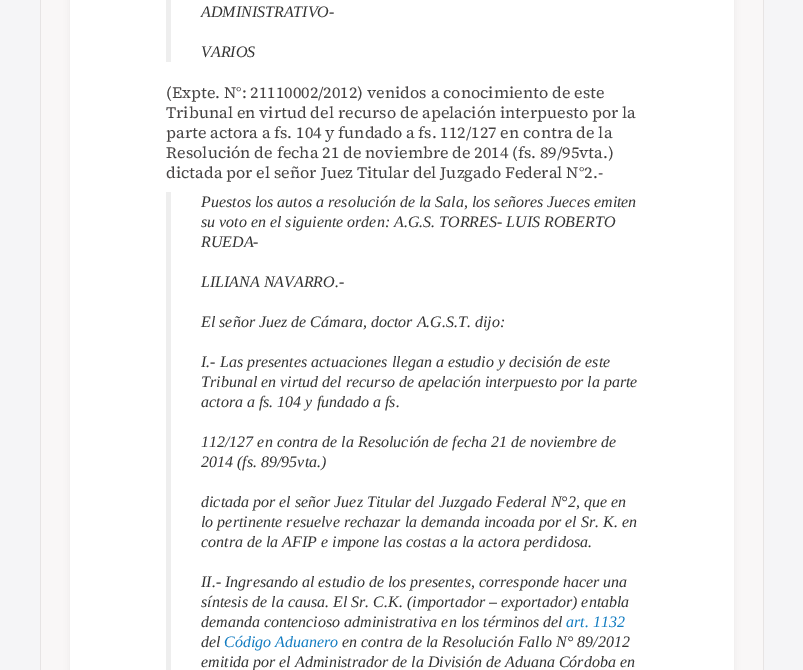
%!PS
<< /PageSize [803 670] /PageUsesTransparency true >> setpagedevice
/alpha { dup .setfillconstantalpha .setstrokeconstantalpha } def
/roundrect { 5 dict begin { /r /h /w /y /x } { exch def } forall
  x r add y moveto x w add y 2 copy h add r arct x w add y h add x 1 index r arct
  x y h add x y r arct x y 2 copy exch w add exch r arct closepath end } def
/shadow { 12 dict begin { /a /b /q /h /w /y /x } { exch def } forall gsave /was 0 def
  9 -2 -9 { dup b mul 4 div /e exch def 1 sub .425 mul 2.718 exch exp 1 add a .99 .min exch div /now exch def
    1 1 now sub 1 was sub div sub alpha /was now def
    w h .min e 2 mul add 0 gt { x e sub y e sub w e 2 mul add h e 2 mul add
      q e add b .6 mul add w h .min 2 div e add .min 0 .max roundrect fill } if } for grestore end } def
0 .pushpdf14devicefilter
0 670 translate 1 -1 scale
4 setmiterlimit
0.961 0.961 0.969 setrgbcolor
0 0 803 670 rectfill
0.976 0.969 0.969 setrgbcolor
41 0 722 670 rectfill
0.906 0.894 0.894 setrgbcolor
newpath 44 -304 moveto 760 -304 lineto 762 -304 764 -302 764 -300 curveto 764 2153 lineto 40 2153 lineto 40 -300 lineto 40 -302 42 -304 44 -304 curveto closepath 44 -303 moveto 760 -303 lineto 762 -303 763 -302 763 -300 curveto 763 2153 lineto 41 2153 lineto 41 -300 lineto 41 -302 42 -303 44 -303 curveto closepath eofill
0 setgray
70 -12 664 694 0 4 0.06 shadow
1 setgray
70 0 664 670 rectfill
0.933 setgray
166 0 5 62 rectfill
/LiberationSerif-Italic [16 0 0 -16 0 0] selectfont
0.2 setgray
201 17 moveto (ADMINISTRATIVO-) show
201 57 moveto (VARIOS) show
/SourceSerif4-Regular [16 0 0 -16 0 0] selectfont
0.275 0.263 0.263 setrgbcolor
166 98 moveto (\(Expte. N°: 21110002/2012\) venidos a conocimiento de este) show
166 118 moveto (Tribunal en virtud del recurso de apelación interpuesto por la) show
166 138 moveto (parte actora a fs. 104 y fundado a fs. 112/127 en contra de la) show
166 158 moveto (Resolución de fecha 21 de noviembre de 2014 \(fs. 89/95vta.\)) show
166 178 moveto (dictada por el señor Juez Titular del Juzgado Federal N°2.-) show
0.933 setgray
166 192 5 478 rectfill
/LiberationSerif-Italic [16 0 0 -16 0 0] selectfont
0.2 setgray
201 207 moveto (Puestos los autos a resolución de la Sala, los señores Jueces emiten) show
201 227 moveto (su voto en el siguiente orden: A.G.S. TORRES- LUIS ROBERTO) show
201 247 moveto (RUEDA-) show
201 287 moveto (LILIANA NAVARRO.-) show
201 327 moveto (El señor Juez de Cámara, doctor A.G.S.T. dijo:) show
201 367 moveto (I.- Las presentes actuaciones llegan a estudio y decisión de este) show
201 387 moveto (Tribunal en virtud del recurso de apelación interpuesto por la parte) show
201 407 moveto (actora a fs. 104 y fundado a fs.) show
201 447 moveto (112/127 en contra de la Resolución de fecha 21 de noviembre de) show
201 467 moveto (2014 \(fs. 89/95vta.\)) show
201 507 moveto (dictada por el señor Juez Titular del Juzgado Federal N°2, que en) show
201 527 moveto (lo pertinente resuelve rechazar la demanda incoada por el Sr. K. en) show
201 547 moveto (contra de la AFIP e impone las costas a la actora perdidosa.) show
201 587 moveto (II.- Ingresando al estudio de los presentes, corresponde hacer una) show
201 607 moveto (síntesis de la causa. El Sr. C.K. \(importador – exportador\) entabla) show
201 627 moveto (demanda contencioso administrativa en los términos del) show
0.071 0.486 0.757 setrgbcolor
566 627 moveto (art. 1132) show
0.2 setgray
201 647 moveto (del) show
0.071 0.486 0.757 setrgbcolor
224 647 moveto (Código Aduanero) show
0.2 setgray
342 647 moveto (en contra de la Resolución Fallo N° 89/2012) show
201 667 moveto (emitida por el Administrador de la División de Aduana Córdoba en) show
.poppdf14devicefilter showpage
